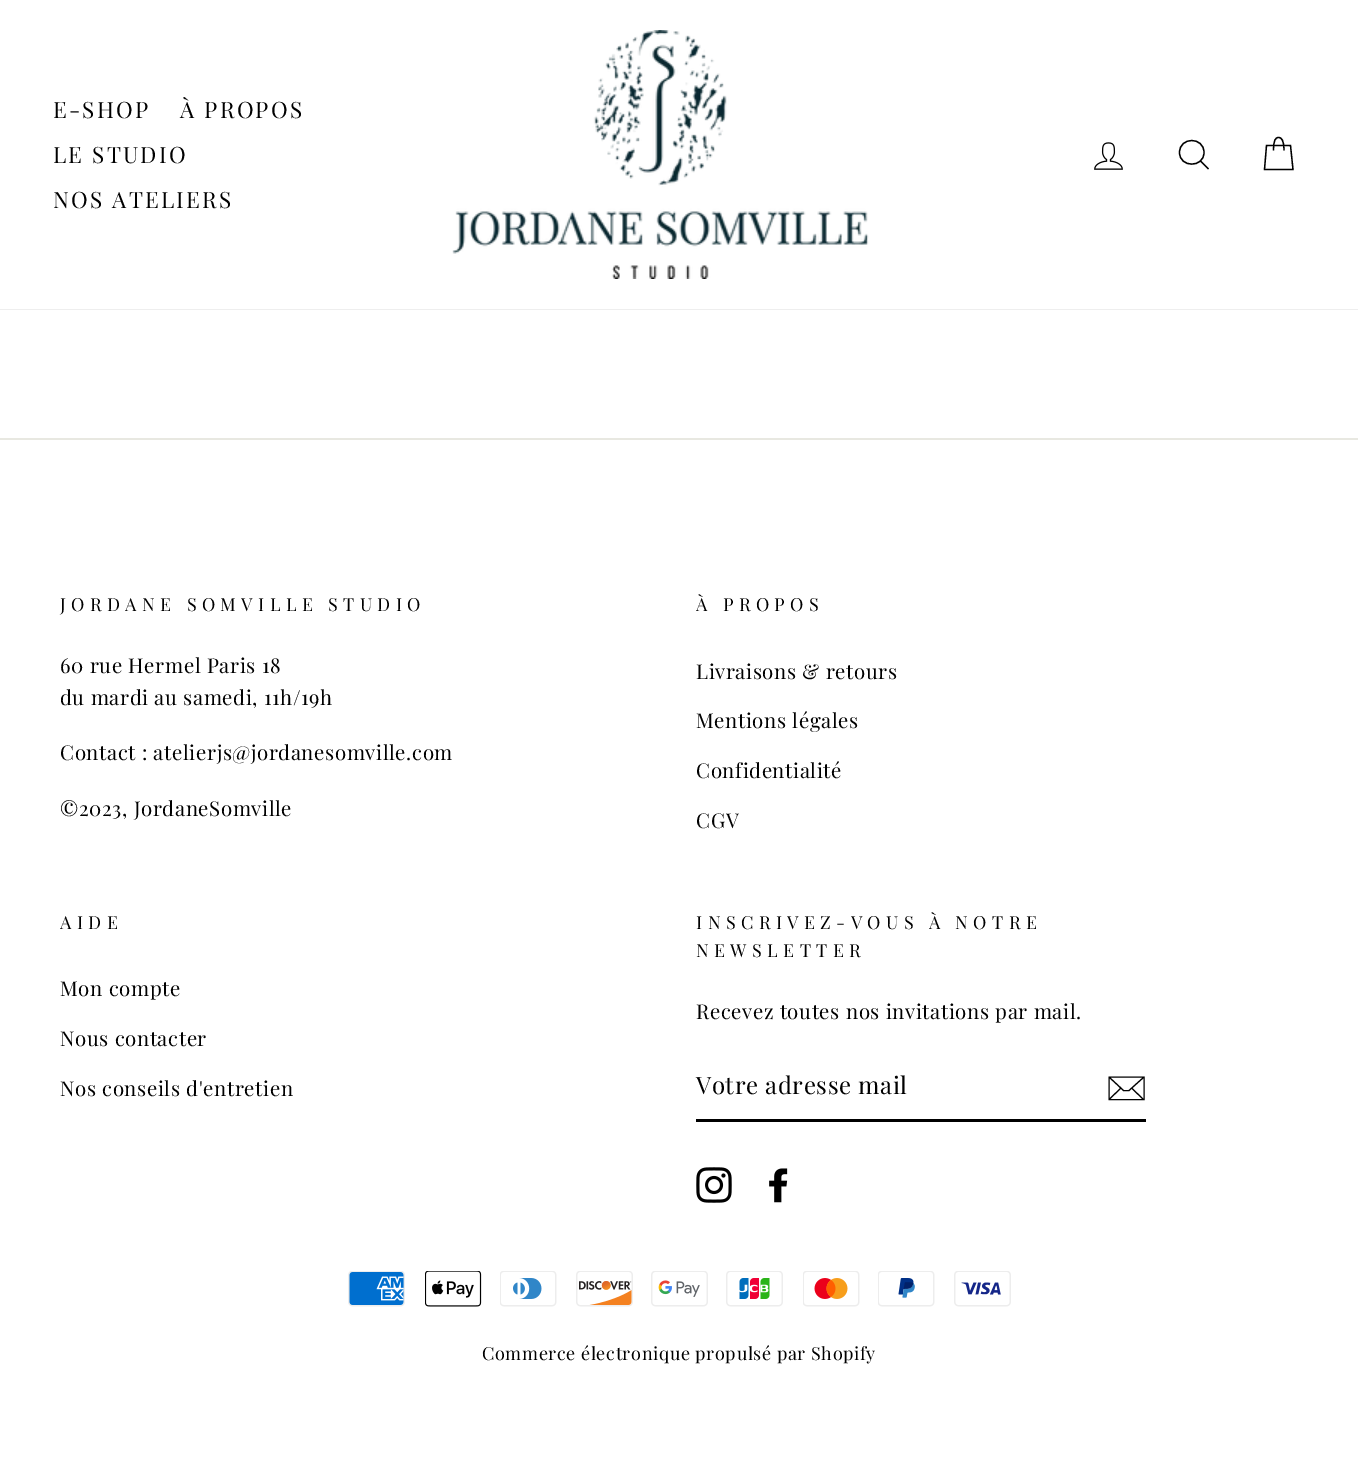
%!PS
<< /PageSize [1358 1470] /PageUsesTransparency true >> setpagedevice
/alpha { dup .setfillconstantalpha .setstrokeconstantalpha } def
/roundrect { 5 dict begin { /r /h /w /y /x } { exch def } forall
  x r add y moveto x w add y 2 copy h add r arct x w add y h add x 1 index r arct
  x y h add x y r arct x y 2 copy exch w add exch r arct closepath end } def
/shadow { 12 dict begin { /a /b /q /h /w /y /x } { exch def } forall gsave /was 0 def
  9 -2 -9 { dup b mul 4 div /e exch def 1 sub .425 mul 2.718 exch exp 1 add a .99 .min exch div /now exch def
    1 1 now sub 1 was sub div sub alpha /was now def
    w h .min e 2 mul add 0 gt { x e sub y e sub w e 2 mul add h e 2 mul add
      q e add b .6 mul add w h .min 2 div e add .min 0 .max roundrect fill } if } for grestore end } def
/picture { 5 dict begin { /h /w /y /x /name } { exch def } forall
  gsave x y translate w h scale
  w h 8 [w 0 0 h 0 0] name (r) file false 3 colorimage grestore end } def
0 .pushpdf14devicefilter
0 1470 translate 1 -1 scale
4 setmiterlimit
1 setgray
0 0 1358 1470 rectfill
gsave
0 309 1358 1 rectclip
0 setgray
0 0 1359 309 0 1 0.2 shadow
grestore
/PlayfairDisplay-Regular [22.5 0 0 -22.5 0 0] selectfont
0 setgray
53 118 moveto 2.25 0 (E-SHOP) ashow
180 118 moveto 2.25 0 (À PROPOS) ashow
53 163 moveto 2.25 0 (LE STUDIO) ashow
53 208 moveto 2.25 0 (NOS ATELIERS) ashow
(img1.rgb) 452 30 417 249 picture
(img2.rgb) 1094 142 29 28 picture
1.3 setlinewidth
newpath 1204 152.5 moveto 1204 168 1179.5 168 1179.5 152.5 curveto 1179.5 136.5 1204 136.5 1204 152.5 curveto closepath 1208.5 169 moveto 1200.5 161 lineto stroke
newpath 1273.5 150.5 moveto 1273.5 140 1275.5 137.5 1278.5 137.5 curveto 1281.5 137.5 1284 140 1284 150.5 curveto 1266.5 145.5 moveto 1290.5 145.5 lineto 1293 169.5 lineto 1264.5 169.5 lineto closepath stroke
0.91 0.91 0.882 setrgbcolor
0 438 1358 2 rectfill
/PlayfairDisplay-Regular [18 0 0 -18 0 0] selectfont
0 setgray
60 611 moveto 5.4 0 (JORDANE SOMVILLE STUDIO) ashow
/PlayfairDisplay-Regular [20.4 0 0 -20.4 0 0] selectfont
60 673 moveto 0.6 0 (60 rue Hermel Paris 18) ashow
60 705 moveto 0.6 0 (du mardi au samedi, 11h/19h) ashow
60 760 moveto 0.6 0 (Contact : atelierjs@jordanesomville.com) ashow
60 816 moveto 0.6 0 (©2023, JordaneSomville) ashow
/PlayfairDisplay-Regular [18 0 0 -18 0 0] selectfont
696 611 moveto 5.4 0 (À PROPOS) ashow
/PlayfairDisplay-Regular [20.4 0 0 -20.4 0 0] selectfont
696 679 moveto 0.6 0 (Livraisons & retours) ashow
696 728 moveto 0.6 0 (Mentions légales) ashow
696 778 moveto 0.6 0 (Confidentialité) ashow
696 828 moveto 0.6 0 (CGV) ashow
/PlayfairDisplay-Regular [18 0 0 -18 0 0] selectfont
60 929 moveto 5.4 0 (AIDE) ashow
/PlayfairDisplay-Regular [20.4 0 0 -20.4 0 0] selectfont
60 996 moveto 0.6 0 (Mon compte) ashow
60 1046 moveto 0.6 0 (Nous contacter) ashow
60 1096 moveto 0.6 0 (Nos conseils d'entretien) ashow
/PlayfairDisplay-Regular [18 0 0 -18 0 0] selectfont
696 929 moveto 5.4 0 (INSCRIVEZ-VOUS À NOTRE) ashow
696 957 moveto 5.4 0 (NEWSLETTER) ashow
/PlayfairDisplay-Regular [20.4 0 0 -20.4 0 0] selectfont
696 1019 moveto 0.6 0 (Recevez toutes nos invitations par mail.) ashow
696 1119 450 3 rectfill
/PlayfairDisplay-Regular [24 0 0 -24 0 0] selectfont
696 1094 moveto 0.6 0 (Votre adresse mail) ashow
1.1 setlinewidth
newpath 1144 1099.5 moveto 1109 1099.5 lineto 1109 1077 lineto 1144 1077 lineto closepath 1109 1077 moveto 1123.5 1090.5 lineto 1129 1090.5 lineto 1144 1077 lineto 1121 1088 moveto 1109.5 1099 lineto 1143.5 1099.5 moveto 1131.5 1088 lineto stroke
(img3.rgb) 696 1167 36 36 picture
(img4.rgb) 769 1168 19 35 picture
(img5.rgb) 348 1271 57 36 picture
(img6.rgb) 425 1271 57 36 picture
(img7.rgb) 500 1271 57 36 picture
(img8.rgb) 576 1271 57 36 picture
(img9.rgb) 651 1271 57 36 picture
(img10.rgb) 726 1271 57 36 picture
(img11.rgb) 803 1271 57 36 picture
(img12.rgb) 878 1271 57 36 picture
(img13.rgb) 954 1271 57 36 picture
/PlayfairDisplay-Regular [18 0 0 -18 0 0] selectfont
482 1360 moveto 0.6 0 (Commerce électronique propulsé par Shopify) ashow
.poppdf14devicefilter showpage
